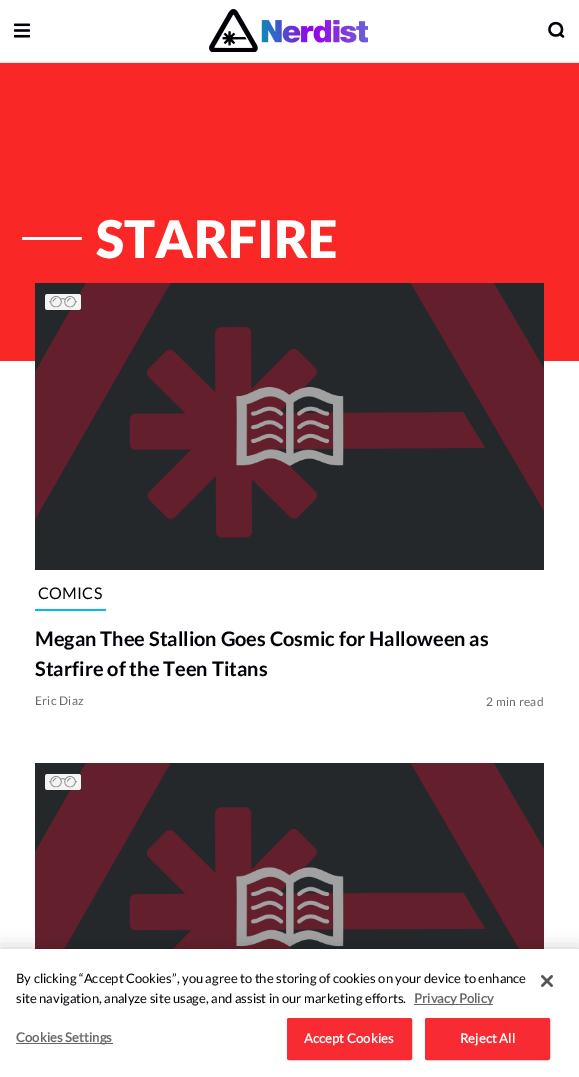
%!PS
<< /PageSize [579 1077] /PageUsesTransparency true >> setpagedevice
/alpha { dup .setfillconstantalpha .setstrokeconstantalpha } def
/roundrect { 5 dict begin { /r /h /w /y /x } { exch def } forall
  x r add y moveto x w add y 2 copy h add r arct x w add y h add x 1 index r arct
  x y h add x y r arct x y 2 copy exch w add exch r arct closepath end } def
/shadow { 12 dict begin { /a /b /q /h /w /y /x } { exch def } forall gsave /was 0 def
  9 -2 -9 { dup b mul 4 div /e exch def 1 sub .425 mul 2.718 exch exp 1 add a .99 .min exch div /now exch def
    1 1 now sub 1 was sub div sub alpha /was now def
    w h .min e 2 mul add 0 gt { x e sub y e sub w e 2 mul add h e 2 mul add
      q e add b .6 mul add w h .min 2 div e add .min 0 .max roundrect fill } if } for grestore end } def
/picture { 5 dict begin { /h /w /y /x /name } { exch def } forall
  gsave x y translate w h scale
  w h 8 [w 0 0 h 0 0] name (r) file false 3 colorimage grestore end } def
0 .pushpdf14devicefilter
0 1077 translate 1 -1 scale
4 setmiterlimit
0.98 0.153 0.153 setrgbcolor
0 0 579 1077 rectfill
1 setgray
0 0 579 61 rectfill
0.933 setgray
0 61 579 2 rectfill
(img1.rgb) 14 23 16 15 picture
(img2.rgb) 209 9 159 43 picture
0 0 0.024 setrgbcolor
2.3 setlinewidth
1 setlinecap
1 setlinejoin
newpath 562 29.5 moveto 562 37.5 549.5 37.5 549.5 29.5 curveto 549.5 21 562 21 562 29.5 curveto closepath 563 36.5 moveto 560 34 lineto stroke
1 setgray
0 361 579 588 rectfill
22 237 60 3 1.5 roundrect fill
/Lato-Black [52 0 0 -52 0 0] selectfont
96 258 moveto (STARFIRE) show
(img3.rgb) 35 283 509 287 picture
(img4.rgb) 45 294 36 16 picture
0.004 0.729 0.953 setrgbcolor
35 609 71 2 rectfill
/Lato-Regular [16 0 0 -16 0 0] selectfont
0 0 0.024 setrgbcolor
38 599 moveto 0.25 0 (COMICS) ashow
/Lato-Bold [20 0 0 -20 0 0] selectfont
35 646 moveto (Megan Thee Stallion Goes Cosmic for Halloween as) show
35 676 moveto (Starfire of the Teen Titans) show
/Lato-Regular [12 0 0 -12 0 0] selectfont
0.412 setgray
35 705 moveto 0.25 0 (Eric Diaz) ashow
486 706 moveto 0.25 0 (2 min read) ashow
(img5.rgb) 35 763 509 186 picture
(img6.rgb) 45 774 36 16 picture
0 setgray
0 949 579 128 0 9 0.2 shadow
1 setgray
0 949 579 128 rectfill
/Lato-Regular [13 0 0 -13 0 0] selectfont
0 0 0.024 setrgbcolor
16 983 moveto (By clicking “Accept Cookies”, you agree to the storing of cookies on your device to enhance) show
16 1003 moveto (site navigation, analyze site usage, and assist in our marketing efforts.) show
0.412 setgray
414 1004 79 1 rectfill
/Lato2-Bold [13 0 0 -13 0 0] selectfont
414 1003 moveto (Privacy Policy) show
16 1043 97 1 rectfill
16 1042 moveto 0.1 0 (Cookies Settings) ashow
0.969 0.169 0.192 setrgbcolor
287.5 1018.5 124 41 1.5 roundrect gsave fill grestore
1 setlinewidth
0 setlinecap
0 setlinejoin
stroke
1 setgray
304 1043 moveto 0.1 0 (Accept Cookies) ashow
0.969 0.169 0.192 setrgbcolor
425.5 1018.5 124 41 1.5 roundrect gsave fill grestore
stroke
1 setgray
460 1043 moveto 0.1 0 (Reject All) ashow
(img7.rgb) 541 975 12 12 picture
.poppdf14devicefilter showpage
